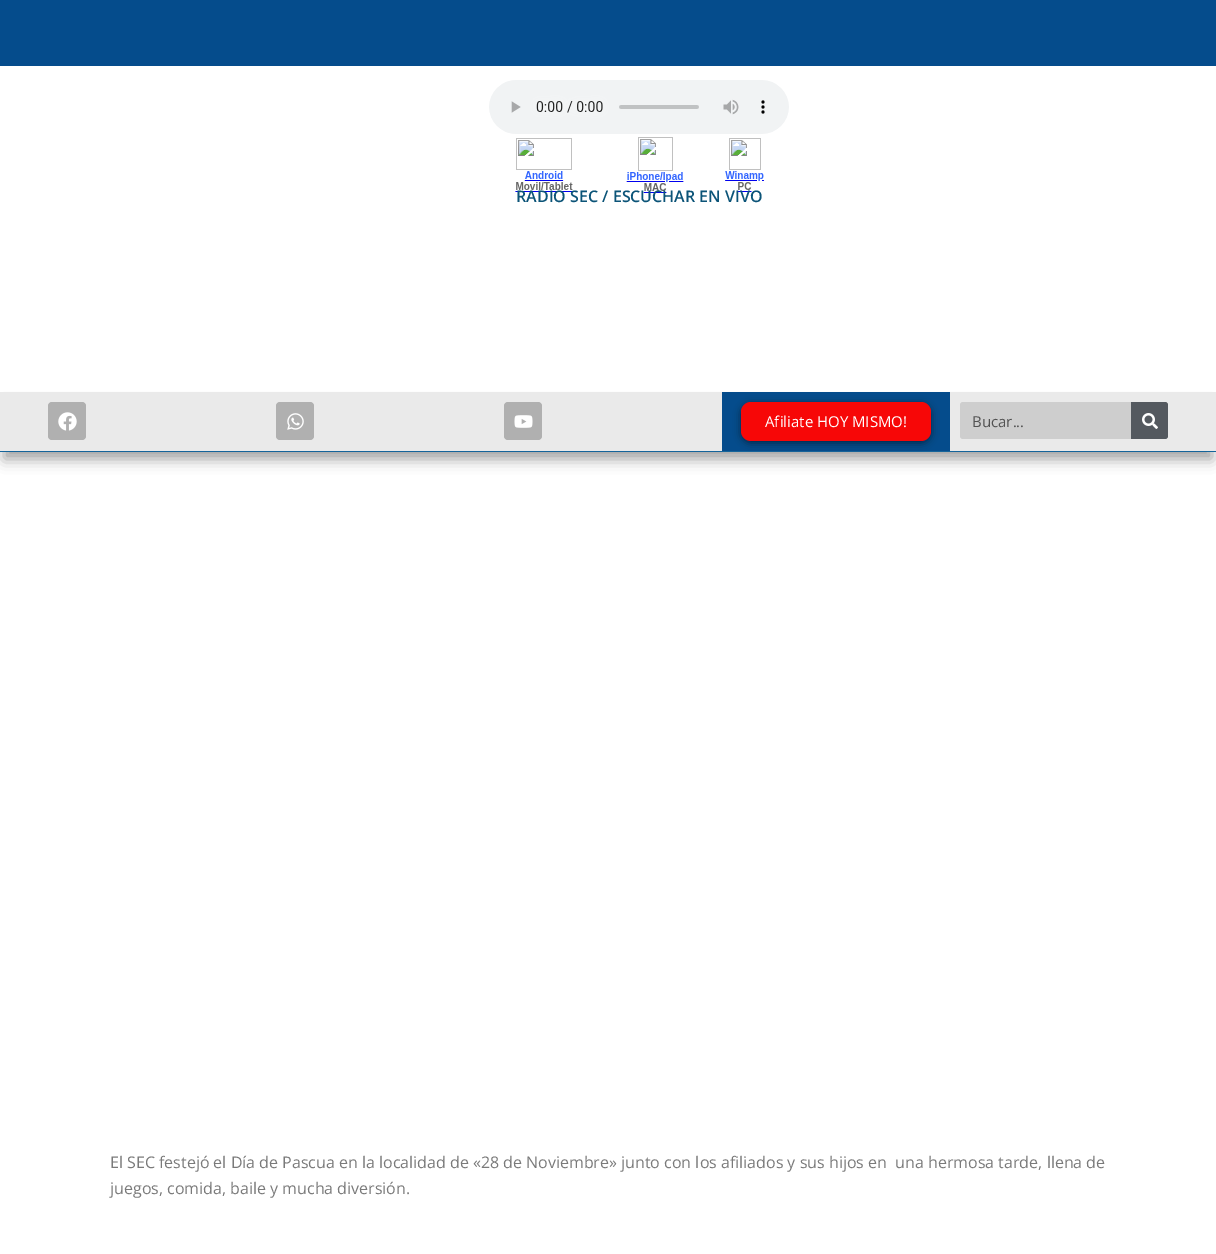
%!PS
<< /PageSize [1216 1254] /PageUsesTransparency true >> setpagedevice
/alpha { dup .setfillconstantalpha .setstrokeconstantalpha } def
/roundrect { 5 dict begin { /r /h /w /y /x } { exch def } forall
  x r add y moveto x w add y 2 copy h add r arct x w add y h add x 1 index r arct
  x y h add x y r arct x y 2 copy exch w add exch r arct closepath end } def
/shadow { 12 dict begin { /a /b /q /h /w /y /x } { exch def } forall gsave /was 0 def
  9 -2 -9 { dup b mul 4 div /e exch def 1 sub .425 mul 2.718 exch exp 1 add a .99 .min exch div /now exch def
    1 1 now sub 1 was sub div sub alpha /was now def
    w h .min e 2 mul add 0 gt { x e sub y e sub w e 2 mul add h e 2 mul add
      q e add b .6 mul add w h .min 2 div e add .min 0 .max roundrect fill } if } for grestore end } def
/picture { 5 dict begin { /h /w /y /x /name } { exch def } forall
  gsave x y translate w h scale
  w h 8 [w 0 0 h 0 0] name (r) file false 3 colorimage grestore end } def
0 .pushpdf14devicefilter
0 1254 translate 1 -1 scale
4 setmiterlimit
1 setgray
0 0 1216 1254 rectfill
0.02 0.298 0.549 setrgbcolor
0 0 1216 66 rectfill
(img1.rgb) 489 80 300 113 picture
/OpenSans-SemiBold [16 0 0 -16 0 0] selectfont
0.047 0.329 0.471 setrgbcolor
516 202 moveto (RADIO SEC / ESCUCHAR EN VIVO) show
0 setgray
4 407 1208 52 0 7 0.37 shadow
0.082 0.392 0.604 setrgbcolor
0 451 1216 1 rectfill
0.918 setgray
0 392 1216 59 rectfill
0.69 setgray
48 402 38 38 4 roundrect fill
(img2.rgb) 58 412 19 19 picture
276 402 38 38 4 roundrect fill
(img3.rgb) 287 413 17 17 picture
504 402 38 38 4 roundrect fill
(img4.rgb) 514 415 19 13 picture
0.02 0.298 0.549 setrgbcolor
722 392 228 59 rectfill
0 setgray
741 404 190 39 10 4 0.5 shadow
0.969 0.027 0.027 setrgbcolor
741 402 190 39 10 roundrect fill
/OpenSans-Regular [15 0 0 -15 0 0] selectfont
1 setgray
765 427 moveto (Afiliate HOY MISMO!) show
0.808 setgray
960 402 208 37 3 roundrect fill
0.322 setgray
972 427 moveto (Bucar...) show
0.329 0.349 0.373 setrgbcolor
newpath 1131 402 moveto 1165 402 lineto 1166.5 402 1168 403.5 1168 405 curveto 1168 436 lineto 1168 437.5 1166.5 439 1165 439 curveto 1131 439 lineto closepath fill
(img5.rgb) 1142 413 16 16 picture
/OpenSans-Regular [16 0 0 -16 0 0] selectfont
0.478 setgray
110 1168 moveto (El SEC festejó el Día de Pascua en la localidad de «28 de Noviembre» junto con los afiliados y sus hijos en  una hermosa tarde, llena de) show
110 1194 moveto (juegos, comida, baile y mucha diversión.) show
.poppdf14devicefilter showpage
